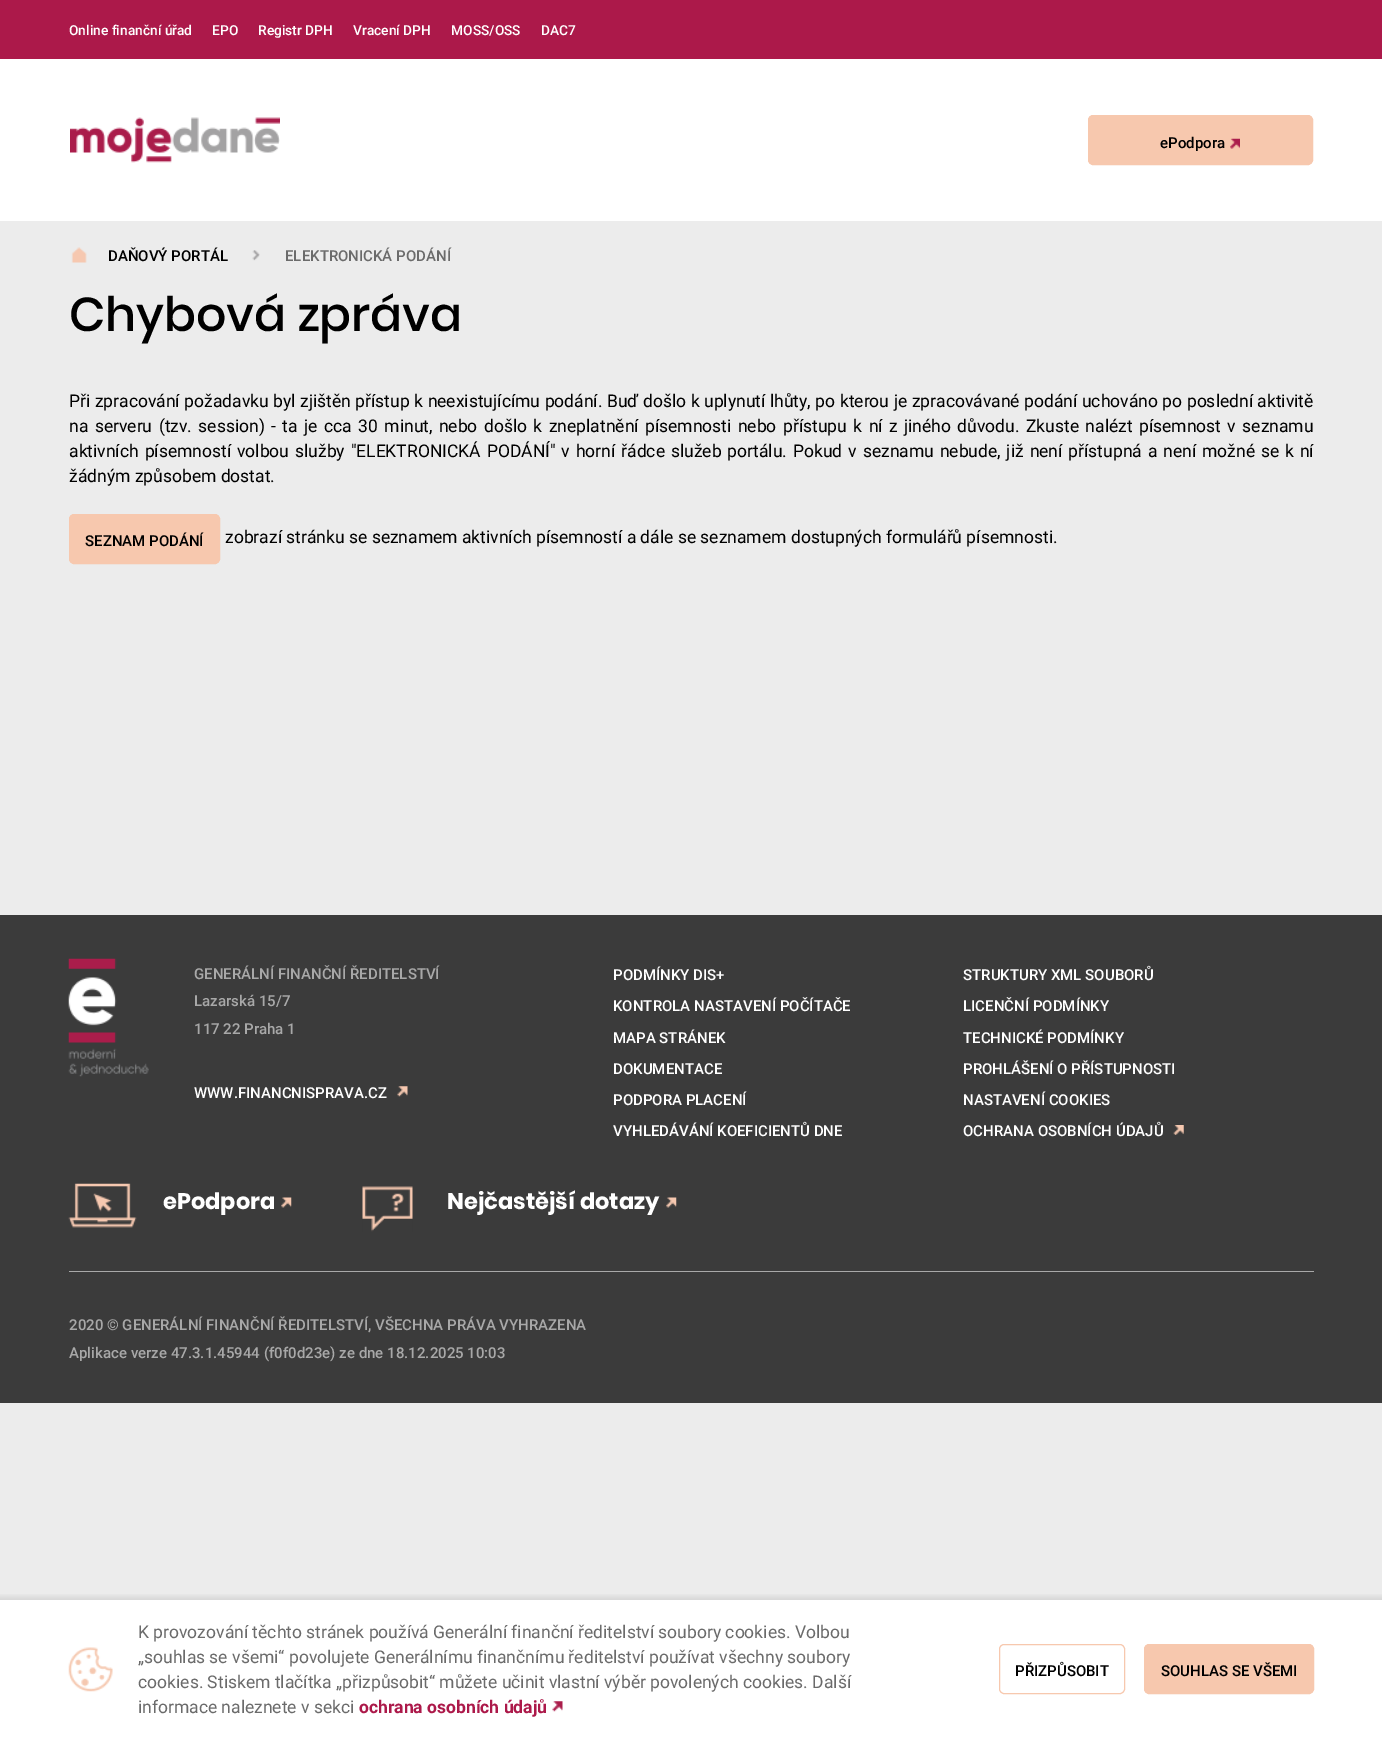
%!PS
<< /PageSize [1382 1737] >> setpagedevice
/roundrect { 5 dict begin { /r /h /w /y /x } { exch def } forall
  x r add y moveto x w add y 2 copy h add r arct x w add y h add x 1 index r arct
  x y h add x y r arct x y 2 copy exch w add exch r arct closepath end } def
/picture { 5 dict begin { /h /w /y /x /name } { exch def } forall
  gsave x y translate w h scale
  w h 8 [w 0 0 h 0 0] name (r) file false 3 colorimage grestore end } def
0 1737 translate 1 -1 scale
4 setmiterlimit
0.925 setgray
0 0 1382 1737 rectfill
0.675 0.098 0.29 setrgbcolor
0 0 1382 59 rectfill
/Roboto-Medium [13.75 0 0 -13.75 0 0] selectfont
1 setgray
69 35 moveto (Online finanční úřad) show
212 35 moveto (EPO) show
258 35 moveto (Registr DPH) show
353 35 moveto (Vracení DPH) show
451 35 moveto (MOSS/OSS) show
541 35 moveto (DAC7) show
0 59 1382 162 rectfill
(img1.rgb) 70 117 210 46 picture
0.969 0.784 0.682 setrgbcolor
1088.5 115.5 224 49 4.5 roundrect gsave fill grestore
stroke
/Roboto-Medium [15 0 0 -15 0 0] selectfont
0 setgray
1160 148 moveto (ePodpora) show
(img2.rgb) 1230 138 10 11 picture
(img3.rgb) 71 247 16 16 picture
108 261 moveto (DAŇOVÝ PORTÁL) show
(img4.rgb) 252 250 8 11 picture
0.42 setgray
285 261 moveto (ELEKTRONICKÁ PODÁNÍ) show
/Poppins-Medium [47.5 0 0 -47.5 0 0] selectfont
0 setgray
69 331 moveto (Chybová zpráva) show
/Roboto-Regular [17.5 0 0 -17.5 0 0] selectfont
69 407 moveto 0.2 0 32 (Při zpracování požadavku byl zjištěn přístup k neexistujícímu podání. Buď došlo k uplynutí lhůty, po kterou je zpracovávané podání uchováno po poslední aktivitě) widthshow
69 432 moveto 2.1 0 32 (na serveru \(tzv. session\) - ta je cca 30 minut, nebo došlo k zneplatnění písemnosti nebo přístupu k ní z jiného důvodu. Zkuste nalézt písemnost v seznamu) widthshow
69 457 moveto 1.6 0 32 (aktivních písemností volbou služby "ELEKTRONICKÁ PODÁNÍ" v horní řádce služeb portálu. Pokud v seznamu nebude, již není přístupná a není možné se k ní) widthshow
69 482 moveto (žádným způsobem dostat.) show
0.969 0.784 0.682 setrgbcolor
69.5 514.5 150 49 4.5 roundrect gsave fill grestore
stroke
/Roboto-Medium [15 0 0 -15 0 0] selectfont
0 setgray
85 546 moveto (SEZNAM PODÁNÍ) show
/Roboto-Regular [17.5 0 0 -17.5 0 0] selectfont
225 543 moveto (zobrazí stránku se seznamem aktivních písemností a dále se seznamem dostupných formulářů písemnosti.) show
0.231 setgray
0 915 1382 488 rectfill
(img5.rgb) 68 958 81 119 picture
/Roboto-Medium [15 0 0 -15 0 0] selectfont
0.659 setgray
194 979 moveto (GENERÁLNÍ FINANČNÍ ŘEDITELSTVÍ) show
194 1006 moveto (Lazarská 15/7) show
194 1034 moveto (117 22 Praha 1) show
1 setgray
194 1098 moveto (WWW.FINANCNISPRAVA.CZ) show
(img6.rgb) 397 1086 11 11 picture
613 980 moveto (PODMÍNKY DIS+) show
963 980 moveto (STRUKTURY XML SOUBORŮ) show
613 1011 moveto (KONTROLA NASTAVENÍ POČÍTAČE) show
963 1011 moveto (LICENČNÍ PODMÍNKY) show
613 1043 moveto (MAPA STRÁNEK) show
963 1043 moveto (TECHNICKÉ PODMÍNKY) show
613 1074 moveto (DOKUMENTACE) show
963 1074 moveto (PROHLÁŠENÍ O PŘÍSTUPNOSTI) show
613 1105 moveto (PODPORA PLACENÍ) show
963 1105 moveto (NASTAVENÍ COOKIES) show
613 1136 moveto (VYHLEDÁVÁNÍ KOEFICIENTŮ DNE) show
963 1136 moveto (OCHRANA OSOBNÍCH ÚDAJŮ) show
(img7.rgb) 1173 1125 11 10 picture
(img8.rgb) 68 1183 69 45 picture
/Poppins-Bold [22.5 0 0 -22.5 0 0] selectfont
163 1209 moveto (ePodpora) show
(img9.rgb) 281 1197 11 11 picture
(img10.rgb) 362 1186 51 46 picture
447 1209 moveto (Nejčastější dotazy) show
(img9.rgb) 666 1197 11 11 picture
0.659 setgray
69 1271 1245 1 rectfill
/Roboto-Medium [15 0 0 -15 0 0] selectfont
69 1330 moveto (2020 © GENERÁLNÍ FINANČNÍ ŘEDITELSTVÍ, VŠECHNA PRÁVA VYHRAZENA) show
69 1358 moveto (Aplikace verze 47.3.1.45944 \(f0f0d23e\) ze dne 18.12.2025 10:03) show
(img11.rgb) 0 1594 1382 6 picture
1 setgray
0 1600 1382 137 rectfill
(img12.rgb) 68 1647 45 45 picture
/Roboto-Regular [17.5 0 0 -17.5 0 0] selectfont
0.42 setgray
138 1638 moveto (K provozování těchto stránek používá Generální finanční ředitelství soubory cookies. Volbou) show
138 1663 moveto („souhlas se všemi“ povolujete Generálnímu finančnímu ředitelství používat všechny soubory) show
138 1688 moveto (cookies. Stiskem tlačítka „přizpůsobit“ můžete učinit vlastní výběr povolených cookies. Další) show
138 1713 moveto (informace naleznete v sekci) show
/Roboto-Bold [17.5 0 0 -17.5 0 0] selectfont
0.675 0.098 0.29 setrgbcolor
359 1713 moveto (ochrana osobních údajů) show
(img13.rgb) 552 1701 11 11 picture
0.969 0.784 0.682 setrgbcolor
999.5 1644.5 125 49 4.5 roundrect stroke
/Roboto-Medium [15 0 0 -15 0 0] selectfont
0 setgray
1015 1676 moveto (PŘIZPŮSOBIT) show
0.969 0.784 0.682 setrgbcolor
1144.5 1644.5 169 49 4.5 roundrect gsave fill grestore
stroke
0 setgray
1161 1676 moveto (SOUHLAS SE VŠEMI) show
showpage
